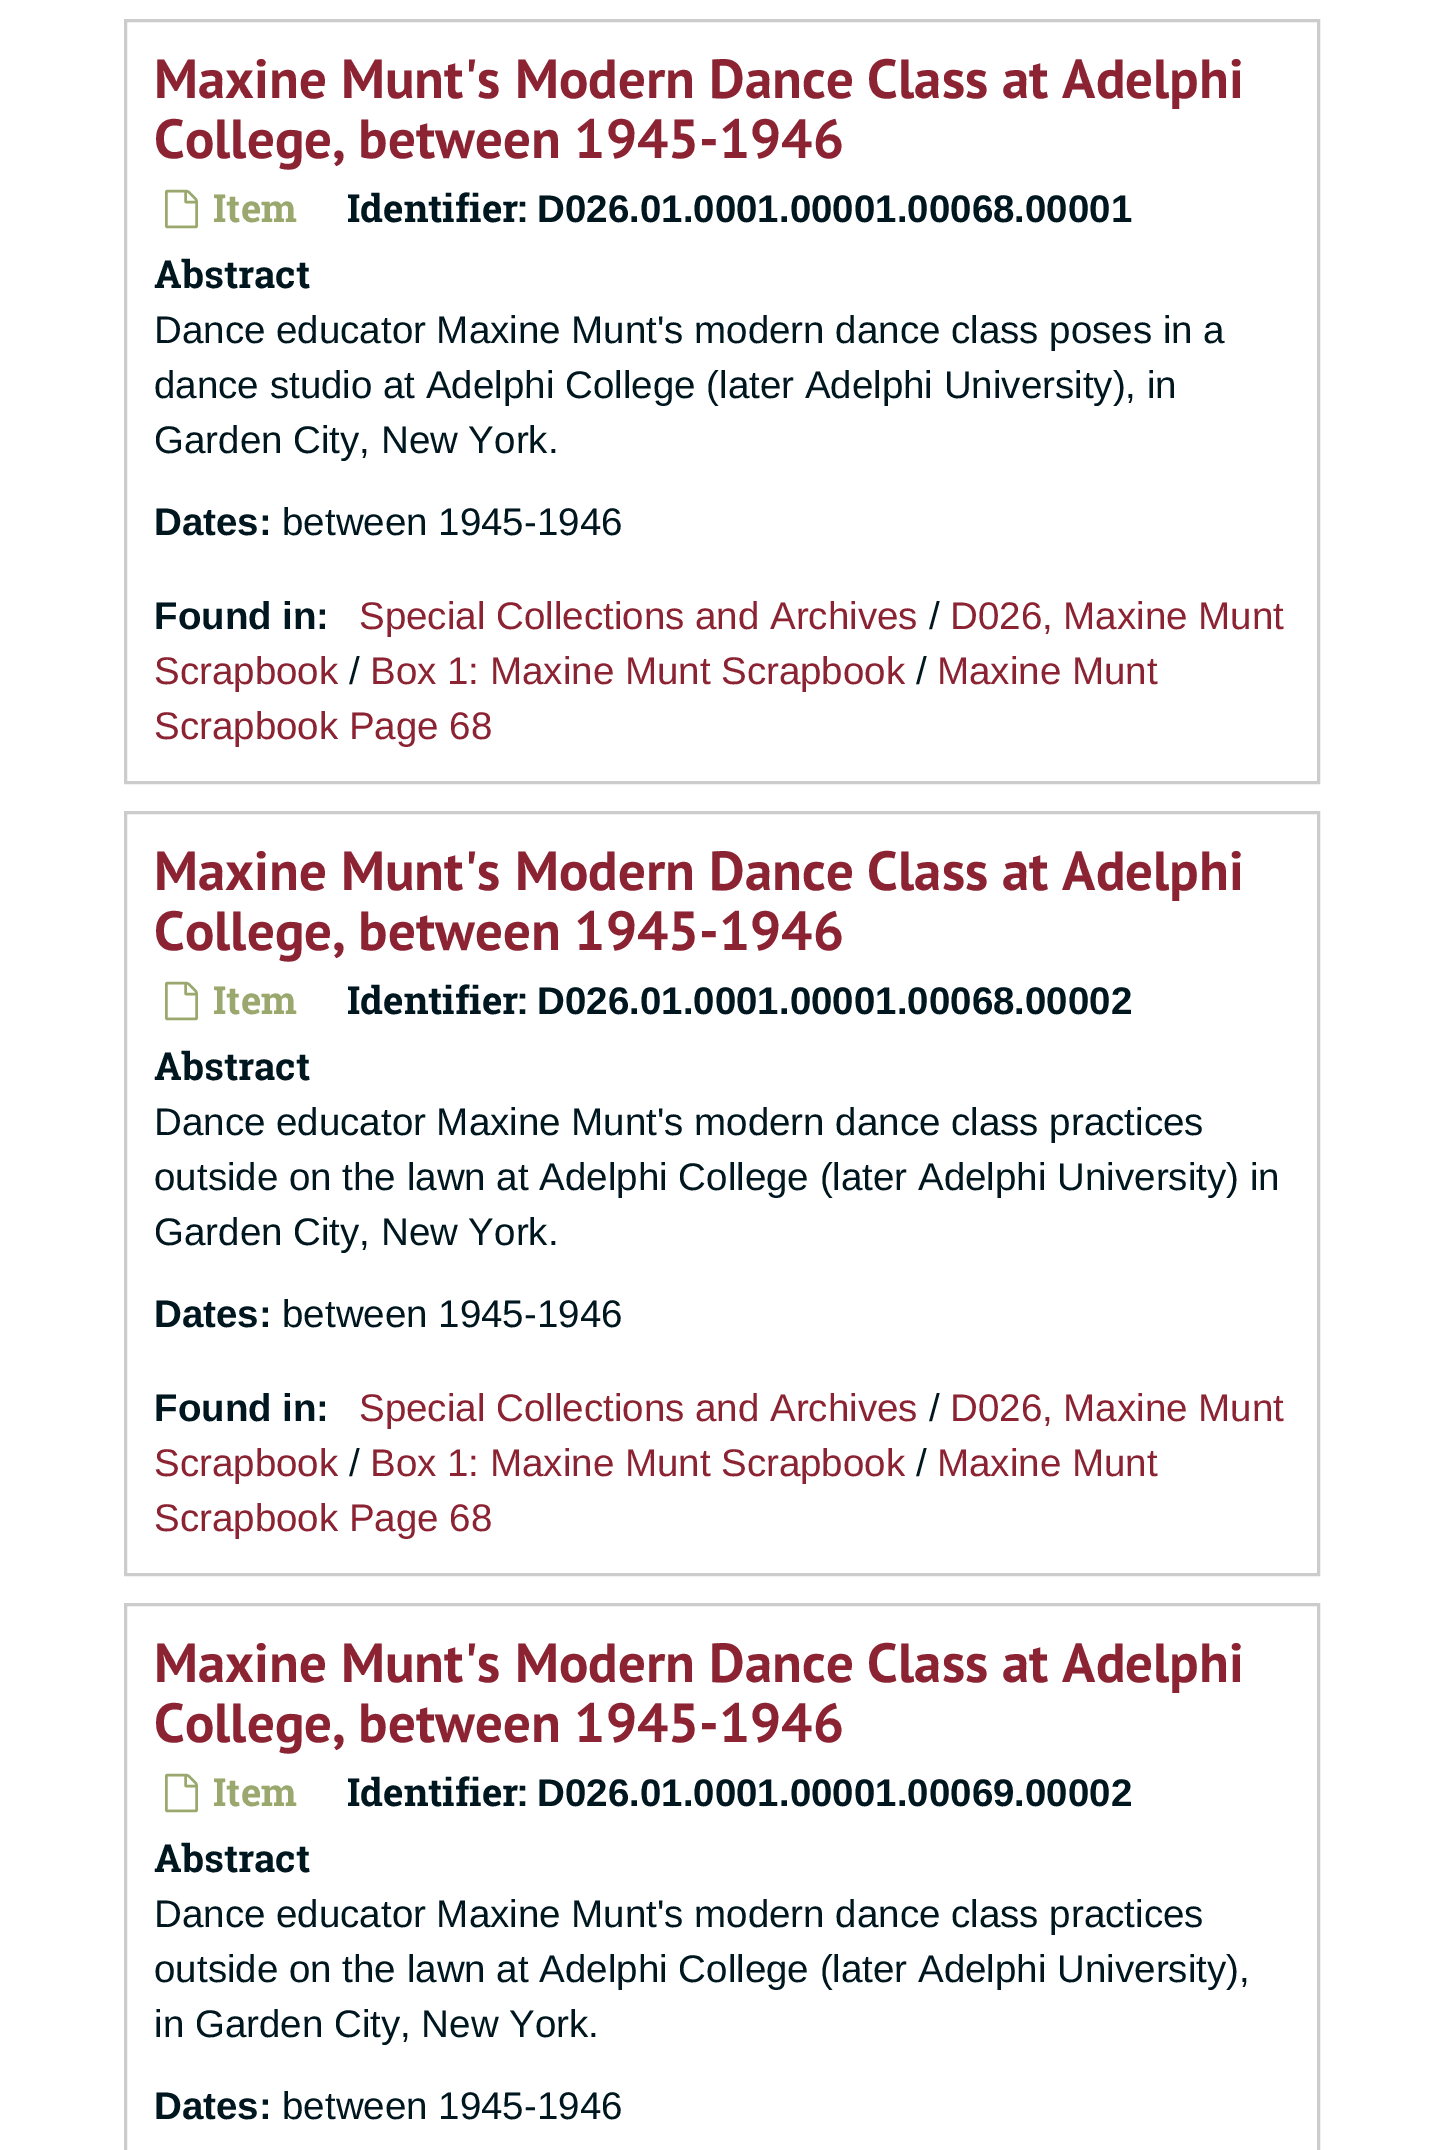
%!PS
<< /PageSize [1442 2150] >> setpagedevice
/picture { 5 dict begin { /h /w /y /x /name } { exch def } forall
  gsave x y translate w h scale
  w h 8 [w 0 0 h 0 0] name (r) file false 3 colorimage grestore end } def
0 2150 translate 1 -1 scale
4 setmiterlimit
1 setgray
0 0 1442 2150 rectfill
0.8 setgray
3 setlinewidth
125.5 20.5 1193 762 rectstroke
/PTSans-Bold [55 0 0 -55 0 0] selectfont
0.545 0.137 0.196 setrgbcolor
154 98 moveto (Maxine Munt's Modern Dance Class at Adelphi) show
154 158 moveto (College, between 1945-1946) show
(img1.rgb) 165 189 33 40 picture
/RobotoSlab-Bold [38.5 0 0 -38.5 0 0] selectfont
0.604 0.659 0.431 setrgbcolor
213 222 moveto (Item) show
0 0.09 0.122 setrgbcolor
347 222 moveto (Identifier:) show
/LiberationSans-Bold [38.5 0 0 -38.5 0 0] selectfont
537 222 moveto (D026.01.0001.00001.00068.00001) show
/RobotoSlab-Bold [38.5 0 0 -38.5 0 0] selectfont
154 288 moveto (Abstract) show
/LiberationSans-Regular [38.5 0 0 -38.5 0 0] selectfont
154 343 moveto (Dance educator Maxine Munt's modern dance class poses in a) show
154 398 moveto (dance studio at Adelphi College \(later Adelphi University\), in) show
154 453 moveto (Garden City, New York.) show
/LiberationSans-Bold [38.5 0 0 -38.5 0 0] selectfont
154 535 moveto (Dates:) show
/LiberationSans-Regular [38.5 0 0 -38.5 0 0] selectfont
282 535 moveto (between 1945-1946) show
/LiberationSans-Bold [38.5 0 0 -38.5 0 0] selectfont
154 629 moveto (Found in:) show
/LiberationSans-Regular [38.5 0 0 -38.5 0 0] selectfont
0.545 0.137 0.196 setrgbcolor
359 629 moveto (Special Collections and Archives) show
0 0.09 0.122 setrgbcolor
929 629 moveto (/) show
0.545 0.137 0.196 setrgbcolor
950 629 moveto (D026, Maxine Munt) show
154 684 moveto (Scrapbook) show
0 0.09 0.122 setrgbcolor
349 684 moveto (/) show
0.545 0.137 0.196 setrgbcolor
370 684 moveto (Box 1: Maxine Munt Scrapbook) show
0 0.09 0.122 setrgbcolor
916 684 moveto (/) show
0.545 0.137 0.196 setrgbcolor
937 684 moveto (Maxine Munt) show
154 739 moveto (Scrapbook Page 68) show
0.8 setgray
125.5 812.5 1193 762 rectstroke
/PTSans-Bold [55 0 0 -55 0 0] selectfont
0.545 0.137 0.196 setrgbcolor
154 890 moveto (Maxine Munt's Modern Dance Class at Adelphi) show
154 950 moveto (College, between 1945-1946) show
(img1.rgb) 165 981 33 40 picture
/RobotoSlab-Bold [38.5 0 0 -38.5 0 0] selectfont
0.604 0.659 0.431 setrgbcolor
213 1014 moveto (Item) show
0 0.09 0.122 setrgbcolor
347 1014 moveto (Identifier:) show
/LiberationSans-Bold [38.5 0 0 -38.5 0 0] selectfont
537 1014 moveto (D026.01.0001.00001.00068.00002) show
/RobotoSlab-Bold [38.5 0 0 -38.5 0 0] selectfont
154 1080 moveto (Abstract) show
/LiberationSans-Regular [38.5 0 0 -38.5 0 0] selectfont
154 1135 moveto (Dance educator Maxine Munt's modern dance class practices) show
154 1190 moveto (outside on the lawn at Adelphi College \(later Adelphi University\) in) show
154 1245 moveto (Garden City, New York.) show
/LiberationSans-Bold [38.5 0 0 -38.5 0 0] selectfont
154 1327 moveto (Dates:) show
/LiberationSans-Regular [38.5 0 0 -38.5 0 0] selectfont
282 1327 moveto (between 1945-1946) show
/LiberationSans-Bold [38.5 0 0 -38.5 0 0] selectfont
154 1421 moveto (Found in:) show
/LiberationSans-Regular [38.5 0 0 -38.5 0 0] selectfont
0.545 0.137 0.196 setrgbcolor
359 1421 moveto (Special Collections and Archives) show
0 0.09 0.122 setrgbcolor
929 1421 moveto (/) show
0.545 0.137 0.196 setrgbcolor
950 1421 moveto (D026, Maxine Munt) show
154 1476 moveto (Scrapbook) show
0 0.09 0.122 setrgbcolor
349 1476 moveto (/) show
0.545 0.137 0.196 setrgbcolor
370 1476 moveto (Box 1: Maxine Munt Scrapbook) show
0 0.09 0.122 setrgbcolor
916 1476 moveto (/) show
0.545 0.137 0.196 setrgbcolor
937 1476 moveto (Maxine Munt) show
154 1531 moveto (Scrapbook Page 68) show
0.8 setgray
125.5 1604.5 1193 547 rectstroke
/PTSans-Bold [55 0 0 -55 0 0] selectfont
0.545 0.137 0.196 setrgbcolor
154 1682 moveto (Maxine Munt's Modern Dance Class at Adelphi) show
154 1742 moveto (College, between 1945-1946) show
(img1.rgb) 165 1773 33 40 picture
/RobotoSlab-Bold [38.5 0 0 -38.5 0 0] selectfont
0.604 0.659 0.431 setrgbcolor
213 1806 moveto (Item) show
0 0.09 0.122 setrgbcolor
347 1806 moveto (Identifier:) show
/LiberationSans-Bold [38.5 0 0 -38.5 0 0] selectfont
537 1806 moveto (D026.01.0001.00001.00069.00002) show
/RobotoSlab-Bold [38.5 0 0 -38.5 0 0] selectfont
154 1872 moveto (Abstract) show
/LiberationSans-Regular [38.5 0 0 -38.5 0 0] selectfont
154 1927 moveto (Dance educator Maxine Munt's modern dance class practices) show
154 1982 moveto (outside on the lawn at Adelphi College \(later Adelphi University\),) show
154 2037 moveto (in Garden City, New York.) show
/LiberationSans-Bold [38.5 0 0 -38.5 0 0] selectfont
154 2119 moveto (Dates:) show
/LiberationSans-Regular [38.5 0 0 -38.5 0 0] selectfont
282 2119 moveto (between 1945-1946) show
showpage
